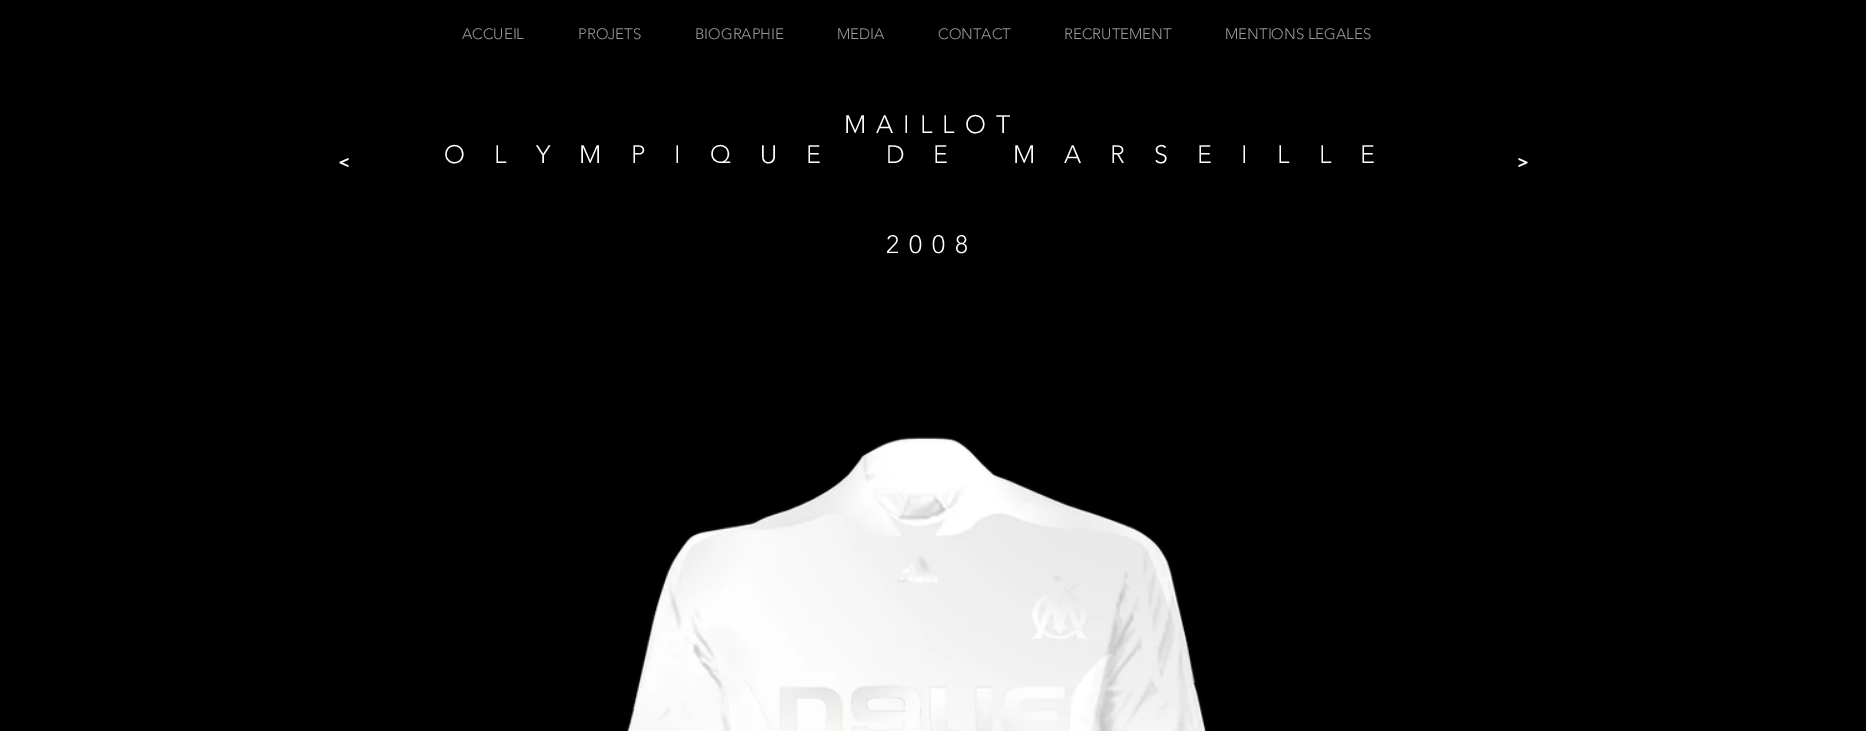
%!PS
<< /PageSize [1866 731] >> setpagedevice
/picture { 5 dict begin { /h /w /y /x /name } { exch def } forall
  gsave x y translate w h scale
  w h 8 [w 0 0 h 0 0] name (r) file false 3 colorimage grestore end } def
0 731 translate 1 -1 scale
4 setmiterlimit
0 setgray
0 0 1866 731 rectfill
/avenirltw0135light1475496-Light [15 0 0 -15 0 0] selectfont
0.6 0.6 0.592 setrgbcolor
462 39 moveto (ACCUEIL) show
578 39 moveto (PROJETS) show
695 39 moveto (BIOGRAPHIE) show
837 39 moveto (MEDIA) show
938 39 moveto (CONTACT) show
1064 39 moveto (RECRUTEMENT) show
1225 39 moveto (MENTIONS LEGALES) show
/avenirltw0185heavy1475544-Black [18 0 0 -18 0 0] selectfont
1 1 0.996 setrgbcolor
338 168 moveto (<) show
/avenirltw0135light1475496-Light [25 0 0 -25 0 0] selectfont
844 133 moveto 10 0 (MAILLOT) ashow
444 163 moveto 29.15 0 (OLYMPIQUE DE MARSEILLE) ashow
886 253 moveto 10 0 (2008) ashow
/avenirltw0185heavy1475544-Black [18 0 0 -18 0 0] selectfont
1517 168 moveto (>) show
(img1.rgb) 578 351 712 380 picture
showpage
